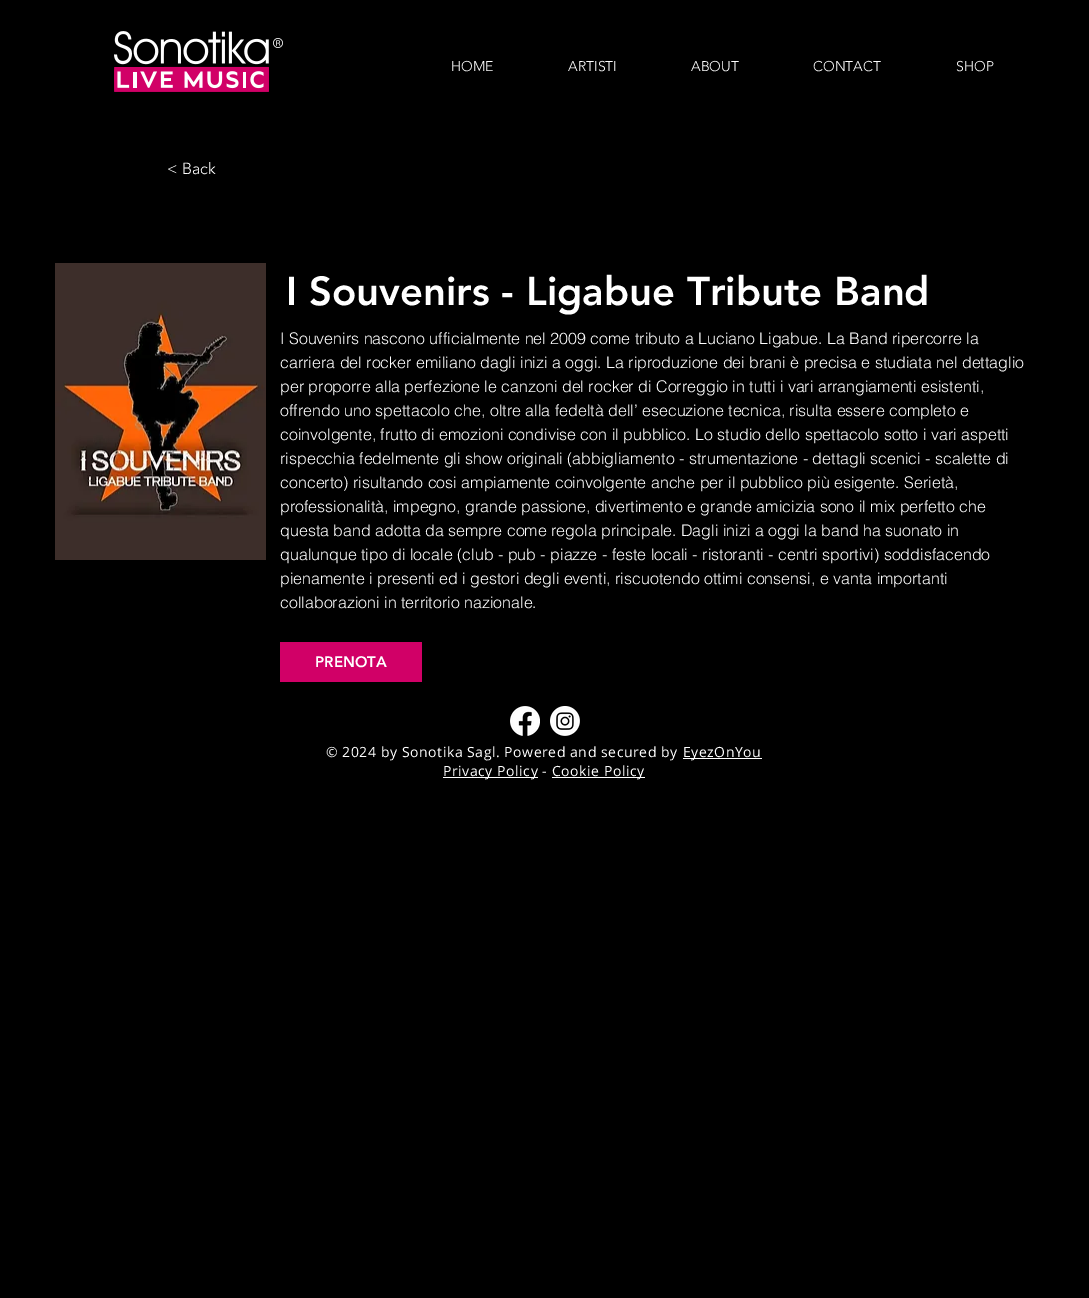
%!PS
<< /PageSize [1089 1298] >> setpagedevice
/picture { 5 dict begin { /h /w /y /x /name } { exch def } forall
  gsave x y translate w h scale
  w h 8 [w 0 0 h 0 0] name (r) file false 3 colorimage grestore end } def
0 1298 translate 1 -1 scale
4 setmiterlimit
0 setgray
0 0 1089 1298 rectfill
(img1.rgb) 114 31 155 61 picture
(img2.rgb) 273 38 10 10 picture
/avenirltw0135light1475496-Light [14 0 0 -14 0 0] selectfont
1 setgray
451 71 moveto (HOME) show
568 71 moveto (ARTISTI) show
691 71 moveto (ABOUT) show
813 71 moveto (CONTACT) show
956 71 moveto (SHOP) show
/avenirltw0135light1475496-Light [16 0 0 -16 0 0] selectfont
167 174 moveto (< Back) show
(img3.rgb) 55 263 211 297 picture
/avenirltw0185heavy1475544-Black [40 0 0 -40 0 0] selectfont
286 305 moveto (I Souvenirs - Ligabue Tribute Band) show
/helvetica-Light [16 0 0 -16 0 0] selectfont
280 344 moveto (I Souvenirs nascono ufficialmente nel 2009 come tributo a Luciano Ligabue. La Band ripercorre la) show
280 368 moveto (carriera del rocker emiliano dagli inizi a oggi. La riproduzione dei brani è precisa e studiata nel dettaglio) show
280 392 moveto (per proporre alla perfezione le canzoni del rocker di Correggio in tutti i vari arrangiamenti esistenti,) show
280 416 moveto (offrendo uno spettacolo che, oltre alla fedeltà dell’ esecuzione tecnica, risulta essere completo e) show
280 440 moveto (coinvolgente, frutto di emozioni condivise con il pubblico. Lo studio dello spettacolo sotto i vari aspetti) show
280 464 moveto (rispecchia fedelmente gli show originali \(abbigliamento - strumentazione - dettagli scenici - scalette di) show
280 488 moveto (concerto\) risultando cosi ampiamente coinvolgente anche per il pubblico più esigente. Serietà,) show
280 512 moveto (professionalità, impegno, grande passione, divertimento e grande amicizia sono il mix perfetto che) show
280 536 moveto (questa band adotta da sempre come regola principale. Dagli inizi a oggi la band ha suonato in) show
280 560 moveto (qualunque tipo di locale \(club - pub - piazze - feste locali - ristoranti - centri sportivi\) soddisfacendo) show
280 584 moveto (pienamente i presenti ed i gestori degli eventi, riscuotendo ottimi consensi, e vanta importanti) show
280 608 moveto (collaborazioni in territorio nazionale.) show
0.82 0 0.404 setrgbcolor
280 642 142 40 rectfill
/avenirltw0185heavy1475544-Black [15 0 0 -15 0 0] selectfont
1 setgray
315 667 moveto (PRENOTA) show
(img4.rgb) 510 706 30 30 picture
(img5.rgb) 550 706 30 30 picture
/OpenSans-Regular [14 0 0 -14 0 0] selectfont
326 757 moveto 0.55 0 (© 2024 by Sonotika Sagl. Powered and secured by) ashow
683 758 79 1 rectfill
683 757 moveto 0.55 0 (EyezOnYou) ashow
443 777 95 1 rectfill
443 776 moveto 0.55 0 (Privacy Policy -) ashow
552 777 93 1 rectfill
552 776 moveto 0.55 0 (Cookie Policy) ashow
showpage
